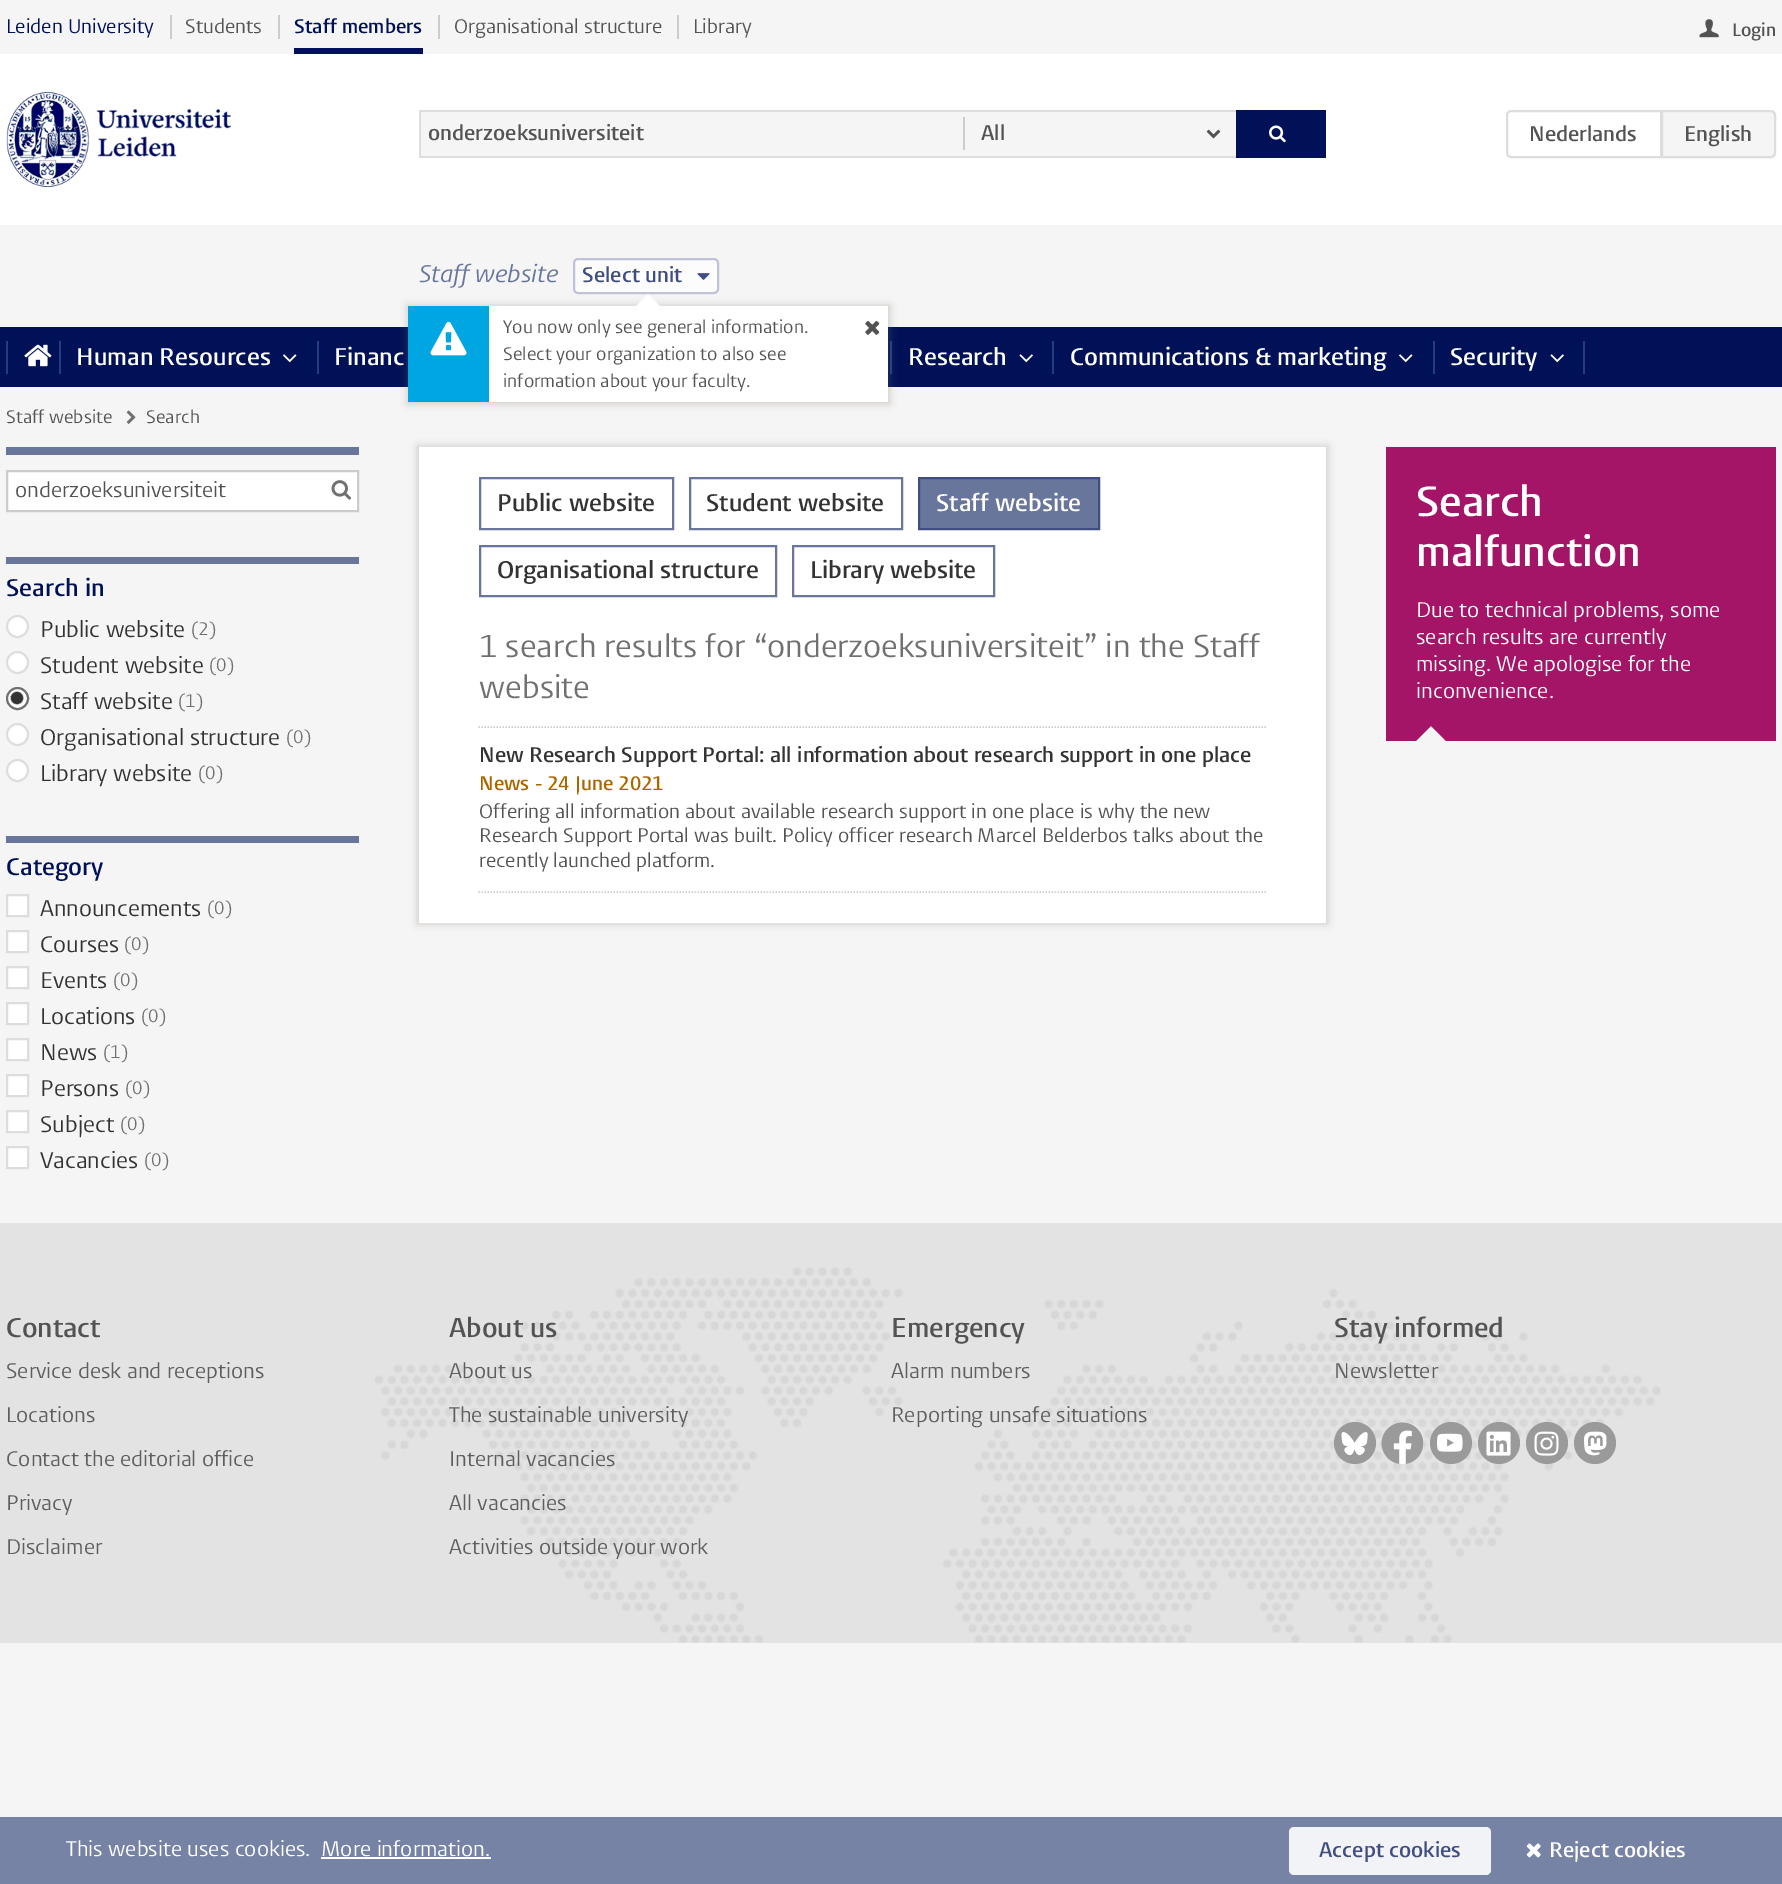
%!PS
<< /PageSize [1782 1884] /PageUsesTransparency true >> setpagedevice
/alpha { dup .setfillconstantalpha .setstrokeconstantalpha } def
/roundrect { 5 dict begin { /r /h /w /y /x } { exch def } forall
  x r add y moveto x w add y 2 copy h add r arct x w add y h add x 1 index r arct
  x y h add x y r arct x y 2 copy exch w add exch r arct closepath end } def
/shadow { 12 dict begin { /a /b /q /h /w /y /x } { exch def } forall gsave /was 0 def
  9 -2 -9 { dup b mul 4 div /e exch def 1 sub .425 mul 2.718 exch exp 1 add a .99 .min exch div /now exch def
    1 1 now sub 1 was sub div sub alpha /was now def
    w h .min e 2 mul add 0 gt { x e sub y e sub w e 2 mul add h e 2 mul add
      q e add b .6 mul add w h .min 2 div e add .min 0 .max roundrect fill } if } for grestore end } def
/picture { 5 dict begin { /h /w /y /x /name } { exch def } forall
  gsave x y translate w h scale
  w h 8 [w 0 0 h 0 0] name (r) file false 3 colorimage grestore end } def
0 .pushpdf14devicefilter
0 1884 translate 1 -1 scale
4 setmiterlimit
0.961 setgray
0 0 1782 1884 rectfill
1 setgray
0 54 1782 171 rectfill
0.8 setgray
170 15 2 24 rectfill
/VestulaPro-Regular [19.5 0 0 -19.5 0 0] selectfont
0 0.067 0.345 setrgbcolor
6 33 moveto (Leiden University) show
0.8 setgray
278 15 2 24 rectfill
0.325 setgray
185 33 moveto (Students) show
0.8 setgray
438 15 2 24 rectfill
/VestulaPro-SemiBold [19.5 0 0 -19.5 0 0] selectfont
0 0.067 0.345 setrgbcolor
294 33 moveto (Staff members) show
294 48 129 6 rectfill
0.8 setgray
677 15 2 24 rectfill
/VestulaPro-Regular [19.5 0 0 -19.5 0 0] selectfont
0.325 setgray
454 33 moveto (Organisational structure) show
693 33 moveto (Library) show
(img1.rgb) 1699 19 20 19 picture
/VestulaPro-SemiBold [18 0 0 -18 0 0] selectfont
1732 36 moveto (Login) show
(img2.rgb) 6 92 225 95 picture
0.961 setgray
421 112 815 44 rectfill
0.867 setgray
419 110 817 2 rectfill
419 156 817 2 rectfill
419 110 2 48 rectfill
/VestulaPro-SemiBold [21 0 0 -21 0 0] selectfont
0.325 setgray
428 140 moveto (onderzoeksuniversiteit) show
0.8 setgray
963 117 2 33 rectfill
0.325 setgray
981 140 moveto (All) show
(img3.rgb) 1206 129 15 10 picture
0 0.067 0.345 setrgbcolor
1236 110 90 48 rectfill
(img4.rgb) 1269 125 17 18 picture
0.867 setgray
2 setlinewidth
newpath 1511 111 moveto 1661 111 lineto 1661 157 lineto 1511 157 lineto 1509 157 1507 155 1507 153 curveto 1507 115 lineto 1507 113 1509 111 1511 111 curveto closepath stroke
0.325 setgray
1529 141 moveto (Nederlands) show
0.961 setgray
newpath 1661 110 moveto 1771 110 lineto 1774 110 1776 112 1776 115 curveto 1776 153 lineto 1776 156 1774 158 1771 158 curveto 1661 158 lineto closepath fill
0.882 setgray
newpath 1662 112 moveto 1754 112 lineto 1777 112 1774 108 1774 129 curveto 1774 155 lineto 1775 155 1775 154 1775 153 curveto 1775 114 lineto 1775 112 1774 111 1772 111 curveto 1662 111 lineto closepath fill
0.867 setgray
newpath 1662 111 moveto 1771 111 lineto 1773 111 1775 113 1775 115 curveto 1775 153 lineto 1775 155 1773 157 1771 157 curveto 1662 157 lineto closepath stroke
0.325 setgray
1684 141 moveto (English) show
/VestulaPro-Italic [24 0 0 -24 0 0] selectfont
0.408 0.463 0.612 setrgbcolor
419 282 moveto (Staff website) show
0.988 setgray
574 259 144 34 4 roundrect gsave fill grestore
0.749 0.765 0.835 setrgbcolor
stroke
/VestulaPro-SemiBold [21 0 0 -21 0 0] selectfont
0.251 0.302 0.51 setrgbcolor
582 282 moveto (Select unit) show
(img5.rgb) 697 273 13 7 picture
0 0.067 0.345 setrgbcolor
0 327 1782 60 rectfill
0.145 0.231 0.522 setrgbcolor
890 341 2 33 rectfill
0.471 0.431 0.392 setrgbcolor
407 305 483 99 0 4 0.3 shadow
1 setgray
489 306 399 96 rectfill
newpath 660 306 moveto 636 306 lineto 648 294 lineto closepath fill
0 0.651 0.886 setrgbcolor
408 306 81 96 rectfill
(img6.rgb) 430 321 37 35 picture
/VestulaPro-Regular [18 0 0 -18 0 0] selectfont
0.325 setgray
503 333 moveto (You now only see general information.) show
(img7.rgb) 865 320 15 15 picture
503 360 moveto (Select your organization to also see) show
503 387 moveto (information about your faculty.) show
0.145 0.231 0.522 setrgbcolor
6 341 2 33 rectfill
(img8.rgb) 24 344 28 23 picture
59 341 2 33 rectfill
/VestulaPro-SemiBold [24 0 0 -24 0 0] selectfont
1 setgray
76 365 moveto (Human Resources) show
(img9.rgb) 283 354 14 9 picture
0.145 0.231 0.522 setrgbcolor
317 341 2 33 rectfill
1 setgray
334 365 moveto (Financ) show
908 365 moveto (Research) show
(img10.rgb) 1019 354 14 9 picture
0.145 0.231 0.522 setrgbcolor
1052 341 2 33 rectfill
1 setgray
1070 365 moveto (Communications & marketing) show
(img9.rgb) 1399 354 14 9 picture
0.145 0.231 0.522 setrgbcolor
1583 341 2 33 rectfill
1433 341 2 33 rectfill
1 setgray
1450 365 moveto (Security) show
(img10.rgb) 1550 354 14 9 picture
/VestulaPro-Regular [18 0 0 -18 0 0] selectfont
0.325 setgray
6 423 moveto (Staff website) show
(img11.rgb) 126 410 10 14 picture
146 423 moveto (Search) show
0.408 0.463 0.612 setrgbcolor
6 447 353 8 rectfill
1 setgray
newpath 7 471 moveto 358 471 lineto 358 511 lineto 7 511 lineto closepath gsave fill grestore
0.8 setgray
stroke
/VestulaPro-Regular [21 0 0 -21 0 0] selectfont
0.325 setgray
15 497 moveto (onderzoeksuniversiteit) show
(img12.rgb) 331 480 20 20 picture
0.408 0.463 0.612 setrgbcolor
6 557 353 7 rectfill
/VestulaPro-SemiBold [24 0 0 -24 0 0] selectfont
0 0.067 0.345 setrgbcolor
6 596 moveto (Search in) show
1 setgray
newpath 17.5 626.5 10.5 0 360 arc closepath gsave fill grestore
0.867 setgray
stroke
/VestulaPro-Regular [22.5 0 0 -22.5 0 0] selectfont
0.2 setgray
40 637 moveto (Public website) show
/VestulaPro-Regular [18 0 0 -18 0 0] selectfont
0.439 setgray
191 635 moveto (\(2\)) show
1 setgray
newpath 17.5 662.5 10.5 0 360 arc closepath gsave fill grestore
0.867 setgray
stroke
/VestulaPro-Regular [22.5 0 0 -22.5 0 0] selectfont
0.2 setgray
40 673 moveto (Student website) show
/VestulaPro-Regular [18 0 0 -18 0 0] selectfont
0.439 setgray
209 671 moveto (\(0\)) show
gsave
6 687 23 23 11.5 roundrect clip newpath
gsave newpath 8 689 moveto 27 689 lineto 27 708 lineto 8 708 lineto closepath clip newpath 17 698 translate 14 14 scale
<< /ShadingType 3 /ColorSpace /DeviceRGB /Coords [0 0 0 0 0 1] /Extend [true true] /Function << /FunctionType 3 /Domain [0 1] /Functions [<< /FunctionType 2 /Domain [0 1] /C0 [0.2 0.2 0.2] /C1 [0.2 0.2 0.2] /N 1 >> << /FunctionType 2 /Domain [0 1] /C0 [0.2 0.2 0.2] /C1 [1 1 1] /N 1 >> << /FunctionType 2 /Domain [0 1] /C0 [1 1 1] /C1 [1 1 1] /N 1 >>] /Bounds [0.4 0.5] /Encode [0 1 0 1 0 1] >> >> shfill grestore
grestore
newpath 17.5 698.5 10.5 0 360 arc closepath stroke
/VestulaPro-Regular [22.5 0 0 -22.5 0 0] selectfont
0.2 setgray
40 709 moveto (Staff website) show
/VestulaPro-Regular [18 0 0 -18 0 0] selectfont
0.439 setgray
178 707 moveto (\(1\)) show
1 setgray
newpath 17.5 734.5 10.5 0 360 arc closepath gsave fill grestore
0.867 setgray
stroke
/VestulaPro-Regular [22.5 0 0 -22.5 0 0] selectfont
0.2 setgray
40 745 moveto (Organisational structure) show
/VestulaPro-Regular [18 0 0 -18 0 0] selectfont
0.439 setgray
286 743 moveto (\(0\)) show
1 setgray
newpath 17.5 770.5 10.5 0 360 arc closepath gsave fill grestore
0.867 setgray
stroke
/VestulaPro-Regular [22.5 0 0 -22.5 0 0] selectfont
0.2 setgray
40 781 moveto (Library website) show
/VestulaPro-Regular [18 0 0 -18 0 0] selectfont
0.439 setgray
198 779 moveto (\(0\)) show
0.408 0.463 0.612 setrgbcolor
6 836 353 7 rectfill
/VestulaPro-SemiBold [24 0 0 -24 0 0] selectfont
0 0.067 0.345 setrgbcolor
6 875 moveto (Category) show
1 setgray
newpath 7 895 moveto 28 895 lineto 28 916 lineto 7 916 lineto closepath gsave fill grestore
0.867 setgray
stroke
/VestulaPro-Regular [22.5 0 0 -22.5 0 0] selectfont
0.2 setgray
40 916 moveto (Announcements) show
/VestulaPro-Regular [18 0 0 -18 0 0] selectfont
0.439 setgray
207 914 moveto (\(0\)) show
1 setgray
newpath 7 931 moveto 28 931 lineto 28 952 lineto 7 952 lineto closepath gsave fill grestore
0.867 setgray
stroke
/VestulaPro-Regular [22.5 0 0 -22.5 0 0] selectfont
0.2 setgray
40 952 moveto (Courses) show
/VestulaPro-Regular [18 0 0 -18 0 0] selectfont
0.439 setgray
124 950 moveto (\(0\)) show
1 setgray
newpath 7 967 moveto 28 967 lineto 28 988 lineto 7 988 lineto closepath gsave fill grestore
0.867 setgray
stroke
/VestulaPro-Regular [22.5 0 0 -22.5 0 0] selectfont
0.2 setgray
40 988 moveto (Events) show
/VestulaPro-Regular [18 0 0 -18 0 0] selectfont
0.439 setgray
113 986 moveto (\(0\)) show
1 setgray
newpath 7 1003 moveto 28 1003 lineto 28 1024 lineto 7 1024 lineto closepath gsave fill grestore
0.867 setgray
stroke
/VestulaPro-Regular [22.5 0 0 -22.5 0 0] selectfont
0.2 setgray
40 1024 moveto (Locations) show
/VestulaPro-Regular [18 0 0 -18 0 0] selectfont
0.439 setgray
141 1022 moveto (\(0\)) show
1 setgray
newpath 7 1039 moveto 28 1039 lineto 28 1060 lineto 7 1060 lineto closepath gsave fill grestore
0.867 setgray
stroke
/VestulaPro-Regular [22.5 0 0 -22.5 0 0] selectfont
0.2 setgray
40 1060 moveto (News) show
/VestulaPro-Regular [18 0 0 -18 0 0] selectfont
0.439 setgray
103 1058 moveto (\(1\)) show
1 setgray
newpath 7 1075 moveto 28 1075 lineto 28 1096 lineto 7 1096 lineto closepath gsave fill grestore
0.867 setgray
stroke
/VestulaPro-Regular [22.5 0 0 -22.5 0 0] selectfont
0.2 setgray
40 1096 moveto (Persons) show
/VestulaPro-Regular [18 0 0 -18 0 0] selectfont
0.439 setgray
125 1094 moveto (\(0\)) show
1 setgray
newpath 7 1111 moveto 28 1111 lineto 28 1132 lineto 7 1132 lineto closepath gsave fill grestore
0.867 setgray
stroke
/VestulaPro-Regular [22.5 0 0 -22.5 0 0] selectfont
0.2 setgray
40 1132 moveto (Subject) show
/VestulaPro-Regular [18 0 0 -18 0 0] selectfont
0.439 setgray
120 1130 moveto (\(0\)) show
1 setgray
newpath 7 1147 moveto 28 1147 lineto 28 1168 lineto 7 1168 lineto closepath gsave fill grestore
0.867 setgray
stroke
/VestulaPro-Regular [22.5 0 0 -22.5 0 0] selectfont
0.2 setgray
40 1168 moveto (Vacancies) show
/VestulaPro-Regular [18 0 0 -18 0 0] selectfont
0.439 setgray
144 1166 moveto (\(0\)) show
0.471 0.431 0.392 setrgbcolor
417 446 911 478 0 4 0.3 shadow
1 setgray
419 447 907 476 rectfill
0.408 0.463 0.612 setrgbcolor
480 478 193 51 rectstroke
/VestulaPro-SemiBold [24 0 0 -24 0 0] selectfont
0.2 setgray
497 511 moveto (Public website) show
0.408 0.463 0.612 setrgbcolor
690 478 212 51 rectstroke
0.2 setgray
706 511 moveto (Student website) show
0.408 0.463 0.612 setrgbcolor
newpath 919 478 moveto 1099 478 lineto 1099 529 lineto 919 529 lineto closepath gsave fill grestore
0.251 0.302 0.51 setrgbcolor
stroke
1 setgray
936 511 moveto (Staff website) show
0.408 0.463 0.612 setrgbcolor
480 546 296 50 rectstroke
0.2 setgray
497 578 moveto (Organisational structure) show
0.408 0.463 0.612 setrgbcolor
793 546 201 50 rectstroke
0.2 setgray
810 578 moveto (Library website) show
0.8 setgray
1.5 setlinewidth
[1.5 1.5] 0 setdash
newpath 478.5 727 moveto 1266 727 lineto stroke
/VestulaPro-Regular [31.5 0 0 -31.5 0 0] selectfont
0.439 setgray
479 657 moveto (1 search results for “onderzoeksuniversiteit” in the Staff) show
479 698 moveto (website) show
0.8 setgray
newpath 478.5 892 moveto 1266 892 lineto stroke
/VestulaPro-SemiBold [21 0 0 -21 0 0] selectfont
0.2 setgray
479 762 moveto (New Research Support Portal: all information about research support in one place) show
/VestulaPro-SemiBold [19.5 0 0 -19.5 0 0] selectfont
0.667 0.4 0 setrgbcolor
479 790 moveto (News - 24 June 2021) show
/VestulaPro-Regular [19.5 0 0 -19.5 0 0] selectfont
0.325 setgray
479 818 moveto (Offering all information about available research support in one place is why the new) show
479 842 moveto (Research Support Portal was built. Policy officer research Marcel Belderbos talks about the) show
479 867 moveto (recently launched platform.) show
0.643 0.078 0.404 setrgbcolor
1386 447 390 279 rectfill
/VestulaPro-SemiBold [42 0 0 -42 0 0] selectfont
1 setgray
1416 516 moveto (Search) show
1416 566 moveto (malfunction) show
/VestulaPro-Regular [21 0 0 -21 0 0] selectfont
1416 617 moveto (Due to technical problems, some) show
1416 644 moveto (search results are currently) show
1416 671 moveto (missing. We apologise for the) show
1416 698 moveto (inconvenience.) show
0.643 0.078 0.404 setrgbcolor
newpath 1386 726 moveto 1431 726 lineto 1416 741 lineto closepath fill
1386 726 30 15 rectfill
newpath 1431 726 moveto 1776 726 lineto 1761 741 lineto 1446 741 lineto closepath fill
1761 726 15 15 rectfill
0.89 setgray
0 1223 1782 420 rectfill
(img13.rgb) 375 1267 1286 376 picture
/VestulaPro-SemiBold [27 0 0 -27 0 0] selectfont
0.325 setgray
6 1337 moveto (Contact) show
/VestulaPro-Regular [21 0 0 -21 0 0] selectfont
0.369 setgray
6 1378 moveto (Service desk and receptions) show
6 1422 moveto (Locations) show
6 1466 moveto (Contact the editorial office) show
6 1510 moveto (Privacy) show
6 1554 moveto (Disclaimer) show
/VestulaPro-SemiBold [27 0 0 -27 0 0] selectfont
0.325 setgray
449 1337 moveto (About us) show
/VestulaPro-Regular [21 0 0 -21 0 0] selectfont
0.369 setgray
449 1378 moveto (About us) show
449 1422 moveto (The sustainable university) show
449 1466 moveto (Internal vacancies) show
449 1510 moveto (All vacancies) show
449 1554 moveto (Activities outside your work) show
/VestulaPro-SemiBold [27 0 0 -27 0 0] selectfont
0.325 setgray
891 1337 moveto (Emergency) show
/VestulaPro-Regular [21 0 0 -21 0 0] selectfont
0.369 setgray
891 1378 moveto (Alarm numbers) show
891 1422 moveto (Reporting unsafe situations) show
/VestulaPro-SemiBold [27 0 0 -27 0 0] selectfont
0.325 setgray
1334 1337 moveto (Stay informed) show
/VestulaPro-Regular [21 0 0 -21 0 0] selectfont
0.369 setgray
1334 1378 moveto (Newsletter) show
0.604 setgray
newpath 1355 1443 21 0 360 arc closepath fill
(img14.rgb) 1341 1432 27 24 picture
1 setgray
newpath 1403 1443 21 0 360 arc closepath fill
(img15.rgb) 1381 1422 43 42 picture
0.604 setgray
newpath 1451 1443 21 0 360 arc closepath fill
(img16.rgb) 1437 1433 26 19 picture
newpath 1499 1443 21 0 360 arc closepath fill
(img17.rgb) 1486 1431 25 25 picture
newpath 1547 1443 21 0 360 arc closepath fill
(img18.rgb) 1534 1431 25 25 picture
newpath 1595 1443 21 0 360 arc closepath fill
(img19.rgb) 1584 1431 23 25 picture
0.463 0.514 0.647 setrgbcolor
0 1817 1782 67 rectfill
1 setgray
66 1856 moveto (This website uses cookies.) show
321 1856 moveto (More information.) show
321 1857 170 2 rectfill
0.945 0.953 0.965 setrgbcolor
1289 1827 202 48 5 roundrect fill
/VestulaPro-SemiBold [21 0 0 -21 0 0] selectfont
0.251 0.302 0.51 setrgbcolor
1319 1857 moveto (Accept cookies) show
(img20.rgb) 1526 1843 15 15 picture
1 setgray
1549 1857 moveto (Reject cookies) show
.poppdf14devicefilter showpage
